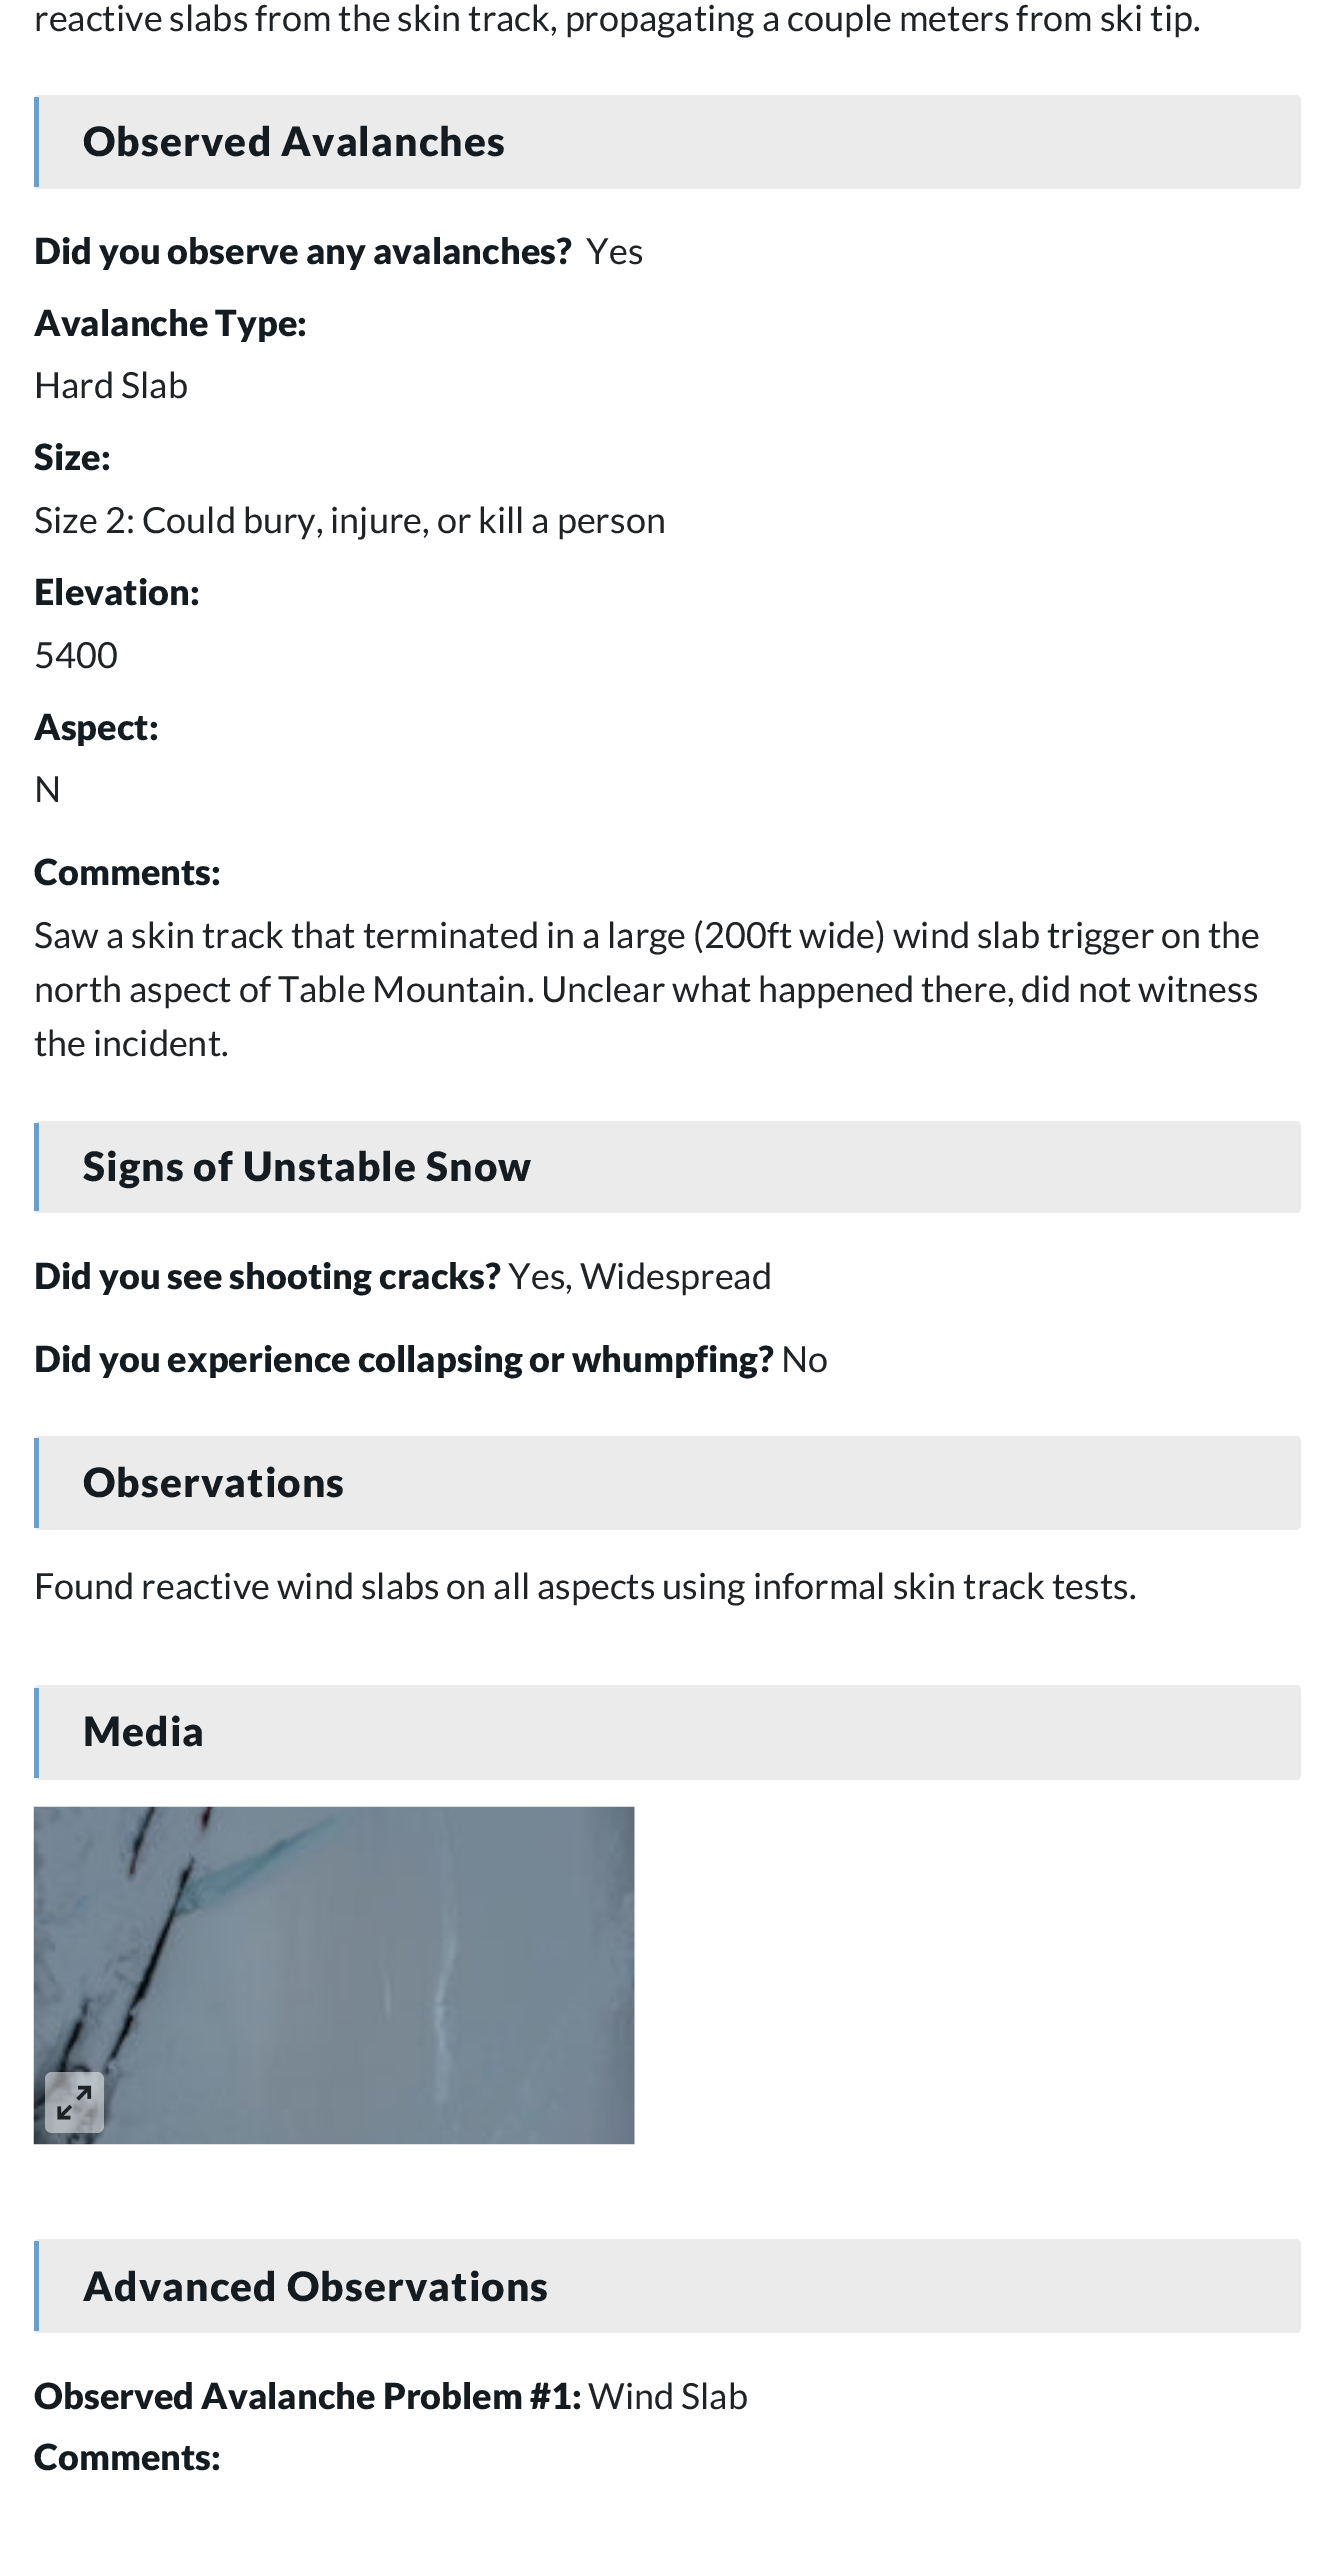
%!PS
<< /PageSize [1334 2551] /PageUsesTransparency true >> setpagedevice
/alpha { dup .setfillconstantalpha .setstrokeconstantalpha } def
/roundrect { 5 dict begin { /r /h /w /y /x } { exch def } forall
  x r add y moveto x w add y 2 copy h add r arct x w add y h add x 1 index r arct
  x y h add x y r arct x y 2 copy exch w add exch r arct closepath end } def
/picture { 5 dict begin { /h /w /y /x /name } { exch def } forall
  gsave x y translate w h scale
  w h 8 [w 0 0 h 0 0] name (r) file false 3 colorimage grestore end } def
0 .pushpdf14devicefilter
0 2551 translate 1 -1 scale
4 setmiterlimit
1 setgray
0 0 1334 2551 rectfill
/Lato-Regular [36 0 0 -36 0 0] selectfont
0.125 0.137 0.149 setrgbcolor
34 31 moveto (reactive slabs from the skin track, propagating a couple meters from ski tip.) show
0.922 setgray
34 95 1267 94 5 roundrect fill
0.408 0.627 0.8 setrgbcolor
34 97 5 90 rectfill
/Lato-Black [40.5 0 0 -40.5 0 0] selectfont
0.078 0.106 0.129 setrgbcolor
83 156 moveto 1.1 0 (Observed Avalanches) ashow
/Lato-Black [36 0 0 -36 0 0] selectfont
34 264 moveto (Did you observe any avalanches?) show
/Lato-Regular [36 0 0 -36 0 0] selectfont
0.125 0.137 0.149 setrgbcolor
586 264 moveto (Yes) show
/Lato-Black [36 0 0 -36 0 0] selectfont
0.078 0.106 0.129 setrgbcolor
34 336 moveto (Avalanche Type:) show
/Lato-Regular [36 0 0 -36 0 0] selectfont
0.125 0.137 0.149 setrgbcolor
34 398 moveto (Hard Slab) show
/Lato-Black [36 0 0 -36 0 0] selectfont
0.078 0.106 0.129 setrgbcolor
34 470 moveto (Size:) show
/Lato-Regular [36 0 0 -36 0 0] selectfont
0.125 0.137 0.149 setrgbcolor
34 533 moveto (Size 2: Could bury, injure, or kill a person) show
/Lato-Black [36 0 0 -36 0 0] selectfont
0.078 0.106 0.129 setrgbcolor
34 605 moveto (Elevation:) show
/Lato-Regular [36 0 0 -36 0 0] selectfont
0.125 0.137 0.149 setrgbcolor
34 668 moveto (5400) show
/Lato-Black [36 0 0 -36 0 0] selectfont
0.078 0.106 0.129 setrgbcolor
34 740 moveto (Aspect:) show
/Lato-Regular [36 0 0 -36 0 0] selectfont
0.125 0.137 0.149 setrgbcolor
34 802 moveto (N) show
/Lato-Black [36 0 0 -36 0 0] selectfont
0.078 0.106 0.129 setrgbcolor
34 885 moveto (Comments:) show
/Lato-Regular [36 0 0 -36 0 0] selectfont
0.125 0.137 0.149 setrgbcolor
34 948 moveto (Saw a skin track that terminated in a large \(200ft wide\) wind slab trigger on the) show
34 1002 moveto (north aspect of Table Mountain. Unclear what happened there, did not witness) show
34 1056 moveto (the incident.) show
0.922 setgray
34 1121 1267 92 5 roundrect fill
0.408 0.627 0.8 setrgbcolor
34 1123 5 88 rectfill
/Lato-Black [40.5 0 0 -40.5 0 0] selectfont
0.078 0.106 0.129 setrgbcolor
83 1181 moveto 1.1 0 (Signs of Unstable Snow) ashow
/Lato-Black [36 0 0 -36 0 0] selectfont
34 1289 moveto (Did you see shooting cracks?) show
/Lato-Regular [36 0 0 -36 0 0] selectfont
0.125 0.137 0.149 setrgbcolor
508 1289 moveto (Yes, Widespread) show
/Lato-Black [36 0 0 -36 0 0] selectfont
0.078 0.106 0.129 setrgbcolor
34 1372 moveto (Did you experience collapsing or whumpfing?) show
/Lato-Regular [36 0 0 -36 0 0] selectfont
0.125 0.137 0.149 setrgbcolor
781 1372 moveto (No) show
0.922 setgray
34 1436 1267 94 5 roundrect fill
0.408 0.627 0.8 setrgbcolor
34 1438 5 90 rectfill
/Lato-Black [40.5 0 0 -40.5 0 0] selectfont
0.078 0.106 0.129 setrgbcolor
83 1497 moveto 1.1 0 (Observations) ashow
/Lato-Regular [36 0 0 -36 0 0] selectfont
0.125 0.137 0.149 setrgbcolor
34 1599 moveto (Found reactive wind slabs on all aspects using informal skin track tests.) show
0.922 setgray
34 1685 1267 95 5 roundrect fill
0.408 0.627 0.8 setrgbcolor
34 1688 5 90 rectfill
/Lato-Black [40.5 0 0 -40.5 0 0] selectfont
0.078 0.106 0.129 setrgbcolor
83 1746 moveto 1.1 0 (Media) ashow
(img1.rgb) 33 1806 602 339 picture
0.5 alpha
1 setgray
45 2072 59 61 7 roundrect fill
1 alpha
(img2.rgb) 57 2085 35 35 picture
0.922 setgray
34 2239 1267 94 5 roundrect fill
0.408 0.627 0.8 setrgbcolor
34 2241 5 90 rectfill
0.078 0.106 0.129 setrgbcolor
83 2301 moveto 1.1 0 (Advanced Observations) ashow
/Lato-Black [36 0 0 -36 0 0] selectfont
34 2409 moveto (Observed Avalanche Problem #1:) show
/Lato-Regular [36 0 0 -36 0 0] selectfont
0.125 0.137 0.149 setrgbcolor
588 2409 moveto (Wind Slab) show
/Lato-Black [36 0 0 -36 0 0] selectfont
0.078 0.106 0.129 setrgbcolor
34 2470 moveto (Comments:) show
.poppdf14devicefilter showpage
